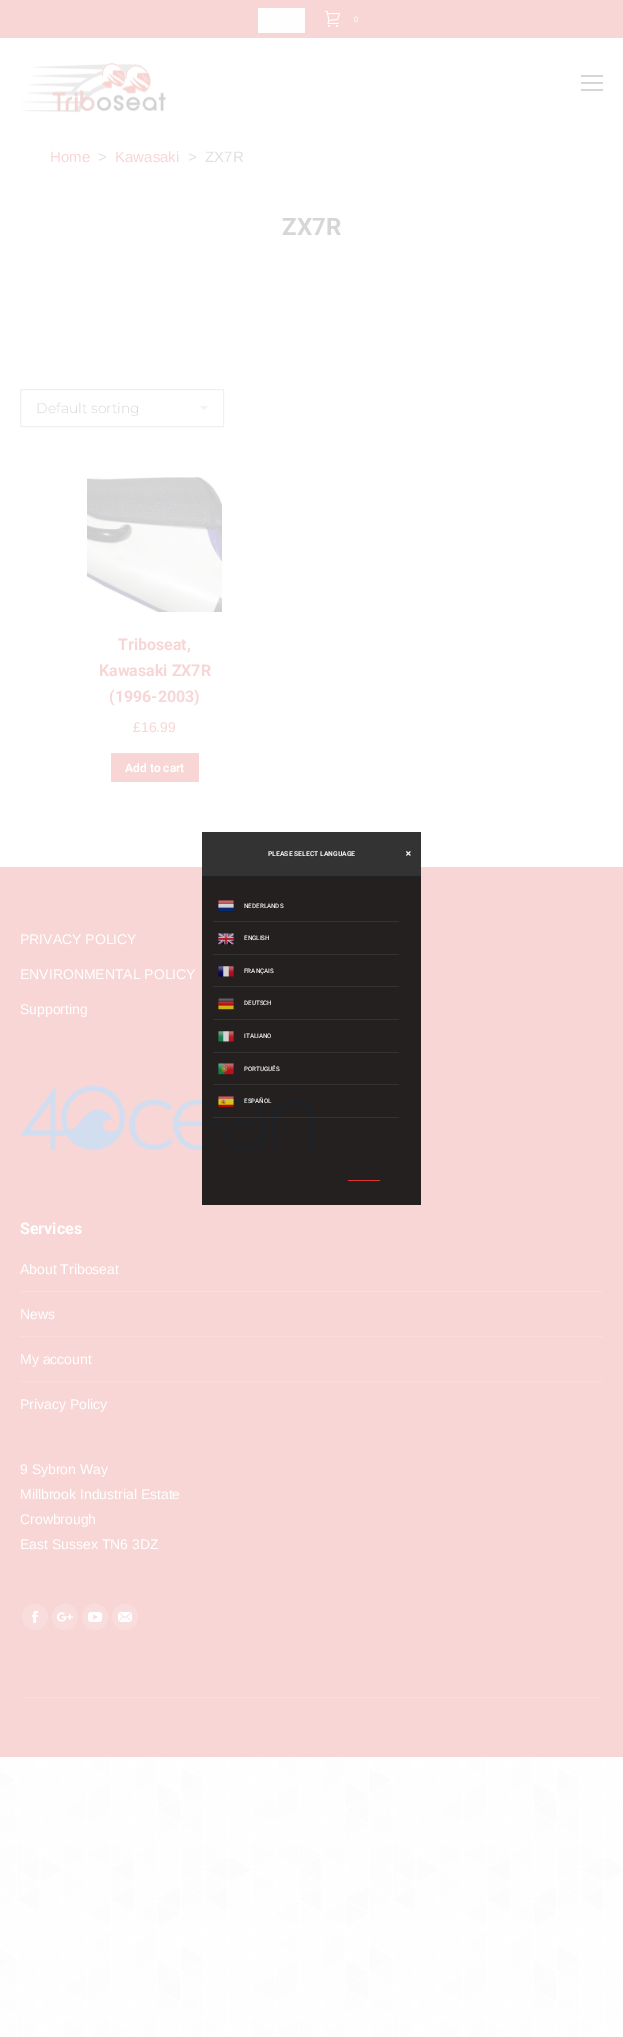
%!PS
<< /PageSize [623 2037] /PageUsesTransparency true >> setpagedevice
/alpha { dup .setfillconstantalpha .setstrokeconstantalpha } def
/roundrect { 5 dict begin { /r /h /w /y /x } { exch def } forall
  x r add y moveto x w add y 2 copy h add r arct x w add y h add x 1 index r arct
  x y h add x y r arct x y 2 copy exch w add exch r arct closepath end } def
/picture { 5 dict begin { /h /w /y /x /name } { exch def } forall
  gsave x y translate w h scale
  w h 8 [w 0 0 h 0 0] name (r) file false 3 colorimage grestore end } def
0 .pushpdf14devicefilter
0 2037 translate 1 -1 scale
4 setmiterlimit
1 setgray
0 0 623 2037 rectfill
(img1.rgb) 0 1757 623 280 picture
0.973 0.839 0.839 setrgbcolor
0 0 623 38 rectfill
0.996 setgray
258 8 47 25 0.5 roundrect fill
(img2.rgb) 325 11 15 16 picture
/LiberationSans-Regular [8 0 0 -8 0 0] selectfont
1 setgray
354 22 moveto (0) show
(img3.rgb) 21 62 145 51 picture
0.839 setgray
581 82 22 2 rectfill
581 75 22 2 rectfill
581 89 22 2 rectfill
/LiberationSans-Regular [15 0 0 -15 0 0] selectfont
0.973 0.839 0.839 setrgbcolor
50 162 moveto (Home) show
0.878 0.878 0.882 setrgbcolor
98 162 moveto (>) show
0.973 0.839 0.839 setrgbcolor
115 162 moveto (Kawasaki) show
0.878 0.878 0.882 setrgbcolor
188 162 moveto (>  ZX7R) show
/Roboto-Bold [24 0 0 -24 0 0] selectfont
0.839 setgray
282 235 moveto (ZX7R) show
0.953 0.953 0.957 setrgbcolor
newpath 200 406 moveto 204 410 lineto 208 406 lineto closepath fill
0.941 setgray
20.5 389.5 203 37 0.5 roundrect stroke
/Montserrat-Light [14 0 0 -14 0 0] selectfont
0.839 setgray
36 413 moveto (Default sorting) show
(img4.rgb) 87 477 135 135 picture
/Roboto-Bold [16 0 0 -16 0 0] selectfont
0.973 0.839 0.839 setrgbcolor
118 650 moveto (Triboseat,) show
99 676 moveto (Kawasaki ZX7R) show
109 702 moveto (\(1996-2003\)) show
/LiberationSans-Regular [14 0 0 -14 0 0] selectfont
133 732 moveto (£16.99) show
111 753 88 29 1 roundrect fill
/Roboto-Bold [12 0 0 -12 0 0] selectfont
1 setgray
125 772 moveto (Add to cart) show
0.973 0.839 0.839 setrgbcolor
0 867 623 890 rectfill
/LiberationSans-Regular [14 0 0 -14 0 0] selectfont
1 setgray
20 944 moveto (PRIVACY POLICY) show
20 979 moveto (ENVIRONMENTAL POLICY) show
20 1014 moveto (Supporting) show
(img5.rgb) 20 1085 300 66 picture
/Roboto-Bold [16 0 0 -16 0 0] selectfont
20 1234 moveto (Services) show
/LiberationSans-Regular [14 0 0 -14 0 0] selectfont
20 1274 moveto (About Triboseat) show
0.976 0.863 0.863 setrgbcolor
20 1291 583 1 rectfill
1 setgray
20 1319 moveto (News) show
0.976 0.863 0.863 setrgbcolor
20 1336 583 1 rectfill
1 setgray
20 1364 moveto (My account) show
0.976 0.863 0.863 setrgbcolor
20 1381 583 1 rectfill
1 setgray
20 1409 moveto (Privacy Policy) show
20 1474 moveto (9 Sybron Way) show
20 1499 moveto (Millbrook Industrial Estate) show
20 1524 moveto (Crowbrough) show
20 1549 moveto (East Sussex TN6 3DZ) show
0.976 0.863 0.863 setrgbcolor
newpath 35 1617 13 0 360 arc closepath fill
(img6.rgb) 32 1611 6 12 picture
newpath 65 1617 13 0 360 arc closepath fill
(img7.rgb) 57 1612 16 10 picture
newpath 95 1617 13 0 360 arc closepath fill
(img8.rgb) 88 1612 14 10 picture
newpath 125 1617 13 0 360 arc closepath fill
(img9.rgb) 118 1612 14 10 picture
0.976 0.859 0.859 setrgbcolor
20 1697 583 1 rectfill
0.85 alpha
0 setgray
202 877 219 328 rectfill
1 alpha
0.2 setgray
202 832 219 44 rectfill
0.133 setgray
202 876 219 1 rectfill
/Roboto-Bold [6.8 0 0 -6.8 0 0] selectfont
0.969 setgray
268 856 moveto (PLEASE SELECT LANGUAGE) show
(img10.rgb) 406 851 5 5 picture
0.2 setgray
213 921 186 1 rectfill
(img11.rgb) 218 900 16 12 picture
/Roboto-Medium [6.25 0 0 -6.25 0 0] selectfont
0.969 setgray
244 908 moveto (NEDERLANDS) show
0.2 setgray
213 954 186 1 rectfill
(img12.rgb) 218 933 16 12 picture
0.969 setgray
244 940 moveto (ENGLISH) show
0.2 setgray
213 986 186 1 rectfill
(img13.rgb) 218 966 16 11 picture
0.969 setgray
244 973 moveto (FRANÇAIS) show
0.2 setgray
213 1019 186 1 rectfill
(img14.rgb) 218 998 16 12 picture
0.969 setgray
244 1005 moveto (DEUTSCH) show
0.2 setgray
213 1052 186 1 rectfill
(img15.rgb) 218 1031 16 11 picture
0.969 setgray
244 1038 moveto (ITALIANO) show
0.2 setgray
213 1084 186 1 rectfill
(img16.rgb) 218 1063 16 12 picture
0.969 setgray
244 1071 moveto (PORTUGUÊS) show
0.2 setgray
213 1117 186 1 rectfill
(img17.rgb) 218 1096 16 12 picture
0.969 setgray
244 1103 moveto (ESPAÑOL) show
0.867 0.2 0.2 setrgbcolor
348 1180 32 1 rectfill
.poppdf14devicefilter showpage
